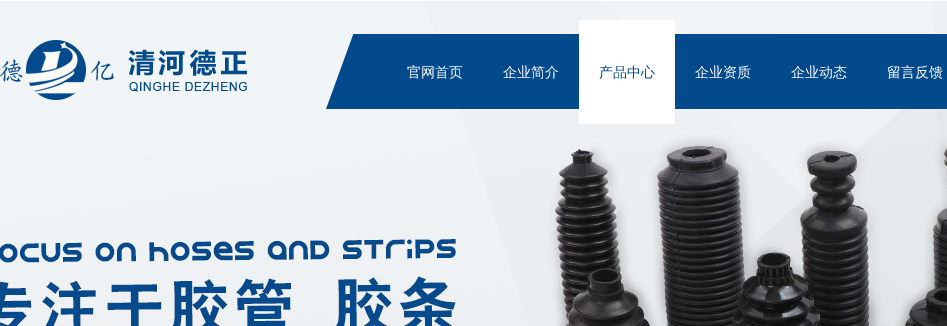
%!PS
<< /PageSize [947 326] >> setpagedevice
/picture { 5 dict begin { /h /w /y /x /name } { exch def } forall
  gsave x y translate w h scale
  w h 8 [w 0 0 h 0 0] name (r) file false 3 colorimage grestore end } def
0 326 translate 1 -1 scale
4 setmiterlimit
1 setgray
0 0 947 326 rectfill
(img1.rgb) 0 1 947 325 picture
(img2.rgb) 326 34 621 75 picture
(img3.rgb) 0 40 247 60 picture
/WenQuanYiZenHei-Medium [14 0 0 -14 0 0] selectfont
407 77 moveto (官网首页) show
503 77 moveto (企业简介) show
579 20 96 104 rectfill
0.012 0.29 0.549 setrgbcolor
599 77 moveto (产品中心) show
1 setgray
695 77 moveto (企业资质) show
791 77 moveto (企业动态) show
887 77 moveto (留言反馈) show
showpage
